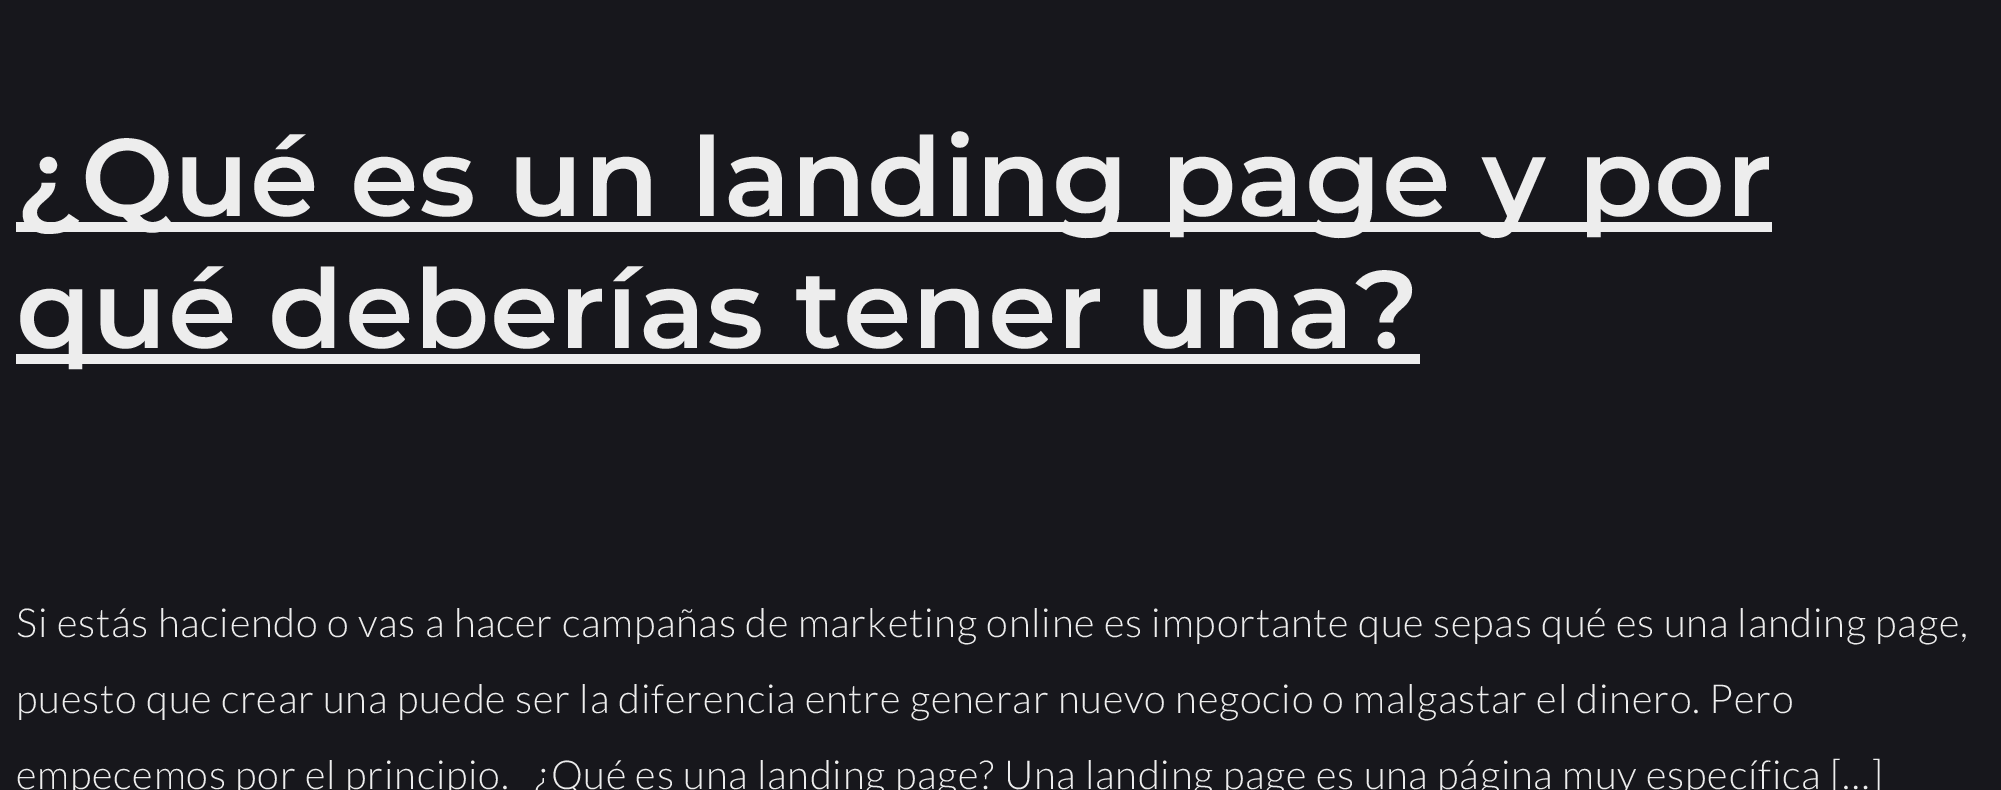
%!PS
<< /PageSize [2001 790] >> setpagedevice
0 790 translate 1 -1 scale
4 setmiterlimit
0.09 0.09 0.11 setrgbcolor
0 0 2001 790 rectfill
0.929 setgray
16 222 1756 10 rectfill
/Montserrat-SemiBold [110 0 0 -110 0 0] selectfont
16 216 moveto 0.8 0 (¿Qué es un landing page y por) ashow
16 354 1404 10 rectfill
16 348 moveto 0.8 0 (qué deberías tener una?) ashow
/Lato-Light [40 0 0 -40 0 0] selectfont
16 637 moveto 0.8 0 (Si estás haciendo o vas a hacer campañas de marketing online es importante que sepas qué es una landing page,) ashow
16 713 moveto 0.8 0 (puesto que crear una puede ser la diferencia entre generar nuevo negocio o malgastar el dinero. Pero) ashow
16 789 moveto 0.8 0 (empecemos por el principio.   ¿Qué es una landing page? Una landing page es una página muy específica […]) ashow
showpage
